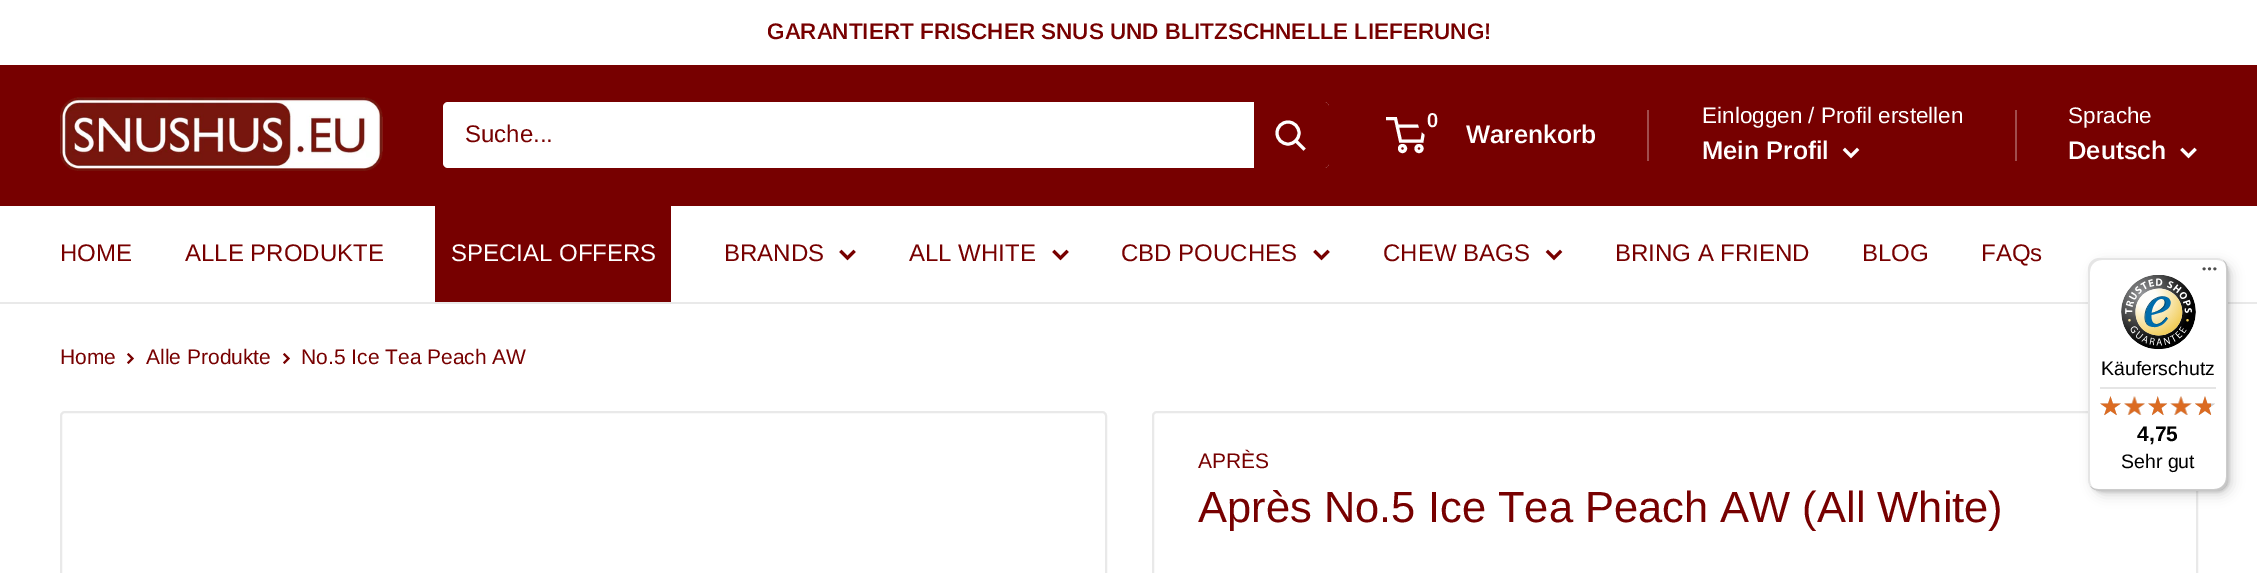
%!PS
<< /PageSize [2257 573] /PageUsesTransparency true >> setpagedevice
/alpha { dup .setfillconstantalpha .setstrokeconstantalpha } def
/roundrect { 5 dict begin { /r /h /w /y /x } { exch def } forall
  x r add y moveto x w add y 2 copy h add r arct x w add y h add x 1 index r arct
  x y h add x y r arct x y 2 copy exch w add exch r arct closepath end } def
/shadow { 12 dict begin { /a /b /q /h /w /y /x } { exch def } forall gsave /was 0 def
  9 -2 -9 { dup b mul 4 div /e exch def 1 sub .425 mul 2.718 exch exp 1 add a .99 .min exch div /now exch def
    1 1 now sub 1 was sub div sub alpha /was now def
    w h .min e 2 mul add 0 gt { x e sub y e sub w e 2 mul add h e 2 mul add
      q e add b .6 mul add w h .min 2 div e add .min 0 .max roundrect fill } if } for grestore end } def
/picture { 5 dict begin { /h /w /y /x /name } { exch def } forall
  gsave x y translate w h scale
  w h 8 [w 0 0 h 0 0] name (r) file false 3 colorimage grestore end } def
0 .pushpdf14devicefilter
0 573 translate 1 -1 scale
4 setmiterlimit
1 setgray
0 0 2257 573 rectfill
/Arimo-SemiBold [22.5 0 0 -22.5 0 0] selectfont
0.467 0 0 setrgbcolor
767 39 moveto (GARANTIERT FRISCHER SNUS UND BLITZSCHNELLE LIEFERUNG!) show
0 65 2257 141 rectfill
(img1.rgb) 60 97 323 74 picture
1 setgray
443 102 886 66 5 roundrect fill
/Arimo-Regular [24 0 0 -24 0 0] selectfont
0.467 0 0 setrgbcolor
465 142 moveto (Suche...) show
newpath 1254 102 moveto 1324 102 lineto 1327 102 1329 104 1329 107 curveto 1329 163 lineto 1329 166 1327 168 1324 168 curveto 1254 168 lineto closepath fill
1 setgray
3 setlinewidth
2 setlinecap
newpath 1303.5 148.5 moveto 1296 141 lineto stroke
0 setlinecap
newpath 1288 133 11 0 360 arc closepath stroke
newpath 1402.5 148.5 3 0 360 arc closepath stroke
newpath 1419 148.5 3 0 360 arc closepath stroke
newpath 1397 126 moveto 1424.5 126 lineto 1422 141 lineto 1400.5 141 lineto 1395.5 118.5 lineto 1386 118.5 lineto stroke
0.467 0 0 setrgbcolor
1418 105 30 32 15 roundrect fill
/Arimo-SemiBold [20 0 0 -20 0 0] selectfont
1 setgray
1427 127 moveto (0) show
/Arimo-SemiBold [25.5 0 0 -25.5 0 0] selectfont
1466 143 moveto (Warenkorb) show
0.627 0.302 0.302 setrgbcolor
1647 110 2 51 rectfill
/Arimo-Regular [22.5 0 0 -22.5 0 0] selectfont
1 setgray
1702 123 moveto (Einloggen / Profil erstellen) show
0.627 0.302 0.302 setrgbcolor
2015 110 2 51 rectfill
/Arimo-SemiBold [25.5 0 0 -25.5 0 0] selectfont
1 setgray
1702 159 moveto (Mein Profil) show
2 setlinecap
newpath 1857 150 moveto 1851 156 lineto 1845 150 lineto stroke
/Arimo-Regular [22.5 0 0 -22.5 0 0] selectfont
2068 123 moveto (Sprache) show
/Arimo-SemiBold [25.5 0 0 -25.5 0 0] selectfont
2068 159 moveto (Deutsch) show
newpath 2194.5 150 moveto 2188.5 156 lineto 2182.5 150 lineto stroke
0.914 setgray
0 302 2257 2 rectfill
/Arimo-Regular [24 0 0 -24 0 0] selectfont
0.467 0 0 setrgbcolor
60 261 moveto (HOME) show
185 261 moveto (ALLE PRODUKTE) show
435 206 236 96 rectfill
1 setgray
451 261 moveto (SPECIAL OFFERS) show
0.467 0 0 setrgbcolor
724 261 moveto (BRANDS) show
newpath 853.5 252 moveto 847.5 258 lineto 841.5 252 lineto stroke
909 261 moveto (ALL WHITE) show
newpath 1066.5 252 moveto 1060.5 258 lineto 1054.5 252 lineto stroke
1121 261 moveto (CBD POUCHES) show
newpath 1327.5 252 moveto 1321.5 258 lineto 1315.5 252 lineto stroke
1383 261 moveto (CHEW BAGS) show
newpath 1560 252 moveto 1554 258 lineto 1548 252 lineto stroke
1615 261 moveto (BRING A FRIEND) show
1862 261 moveto (BLOG) show
1981 261 moveto (FAQs) show
/Arimo-Regular [21 0 0 -21 0 0] selectfont
60 364 moveto (Home) show
2 setlinewidth
newpath 128.5 354.5 moveto 132.5 358.5 lineto 128.5 362.5 lineto stroke
146 364 moveto (Alle Produkte) show
newpath 284.5 354.5 moveto 288.5 358.5 lineto 284.5 362.5 lineto stroke
301 364 moveto (No.5 Ice Tea Peach AW) show
0.914 setgray
0 setlinecap
61 412 1045 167 4 roundrect stroke
1153 412 1044 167 4 roundrect stroke
0.467 0 0 setrgbcolor
1198 468 moveto (APRÈS) show
/Arimo-Regular [43.5 0 0 -43.5 0 0] selectfont
1198 522 moveto (Après No.5 Ice Tea Peach AW \(All White\)) show
0 setgray
2093 263 139 232 12 6 0.15 shadow
2090 260 139 232 12 1.5 0.15 shadow
1 setgray
2088 258 140 233 12 roundrect fill
0.1 alpha
0 setgray
newpath 2102 260 moveto 2217 260 lineto 2221 260 2225 262 2227 265 curveto 2225 261 2221 258 2216 258 curveto 2100 258 lineto 2093 258 2088 263 2088 270 curveto 2088 479 lineto 2088 484 2091 488 2095 490 curveto 2092 488 2090 484 2090 480 curveto 2090 272 lineto 2090 265 2095 260 2102 260 curveto closepath fill
0.2 alpha
newpath 2090 486 moveto 2093 489 2096 491 2100 491 curveto 2216 491 lineto 2223 491 2228 486 2228 479 curveto 2228 270 lineto 2228 266 2226 263 2223 260 curveto 2225 263 2226 265 2226 268 curveto 2226 477 lineto 2226 484 2221 489 2214 489 curveto 2098 489 lineto 2095 489 2093 488 2090 486 curveto closepath fill
0.196 setgray
newpath 2091 487 moveto 2093 489 2096 491 2100 491 curveto 2216 491 lineto 2223 491 2228 486 2228 479 curveto 2228 270 lineto 2228 266 2226 263 2224 261 curveto 2226 263 2227 266 2227 269 curveto 2227 478 lineto 2227 484 2221 490 2215 490 curveto 2099 490 lineto 2096 490 2093 489 2091 487 curveto closepath fill
0.3 alpha
1 setgray
newpath 2090 485 moveto 2092 489 2095 491 2100 491 curveto 2216 491 lineto 2223 491 2228 486 2228 479 curveto 2228 270 lineto 2228 265 2226 262 2222 260 curveto 2225 262 2227 265 2227 269 curveto 2227 478 lineto 2227 484 2221 490 2215 490 curveto 2099 490 lineto 2095 490 2092 488 2090 485 curveto closepath fill
1 alpha
(img2.rgb) 2202 267 15 4 picture
(img3.rgb) 2121 275 75 75 picture
/LiberationSans-Regular [19.5 0 0 -19.5 0 0] selectfont
0 setgray
2101 375 moveto (Käuferschutz) show
0.898 setgray
2100 387 116 2 rectfill
(img4.rgb) 2100 396 21 19 picture
(img5.rgb) 2124 396 21 19 picture
(img6.rgb) 2148 396 19 19 picture
(img7.rgb) 2170 396 22 19 picture
(img8.rgb) 2195 396 20 19 picture
(img9.rgb) 2100 396 21 20 picture
(img10.rgb) 2124 396 21 19 picture
(img11.rgb) 2148 396 20 20 picture
(img12.rgb) 2170 396 22 19 picture
(img13.rgb) 2195 396 16 20 picture
/LiberationSans-Bold [21 0 0 -21 0 0] selectfont
0 setgray
2137 441 moveto (4,75) show
/LiberationSans-Regular [19.5 0 0 -19.5 0 0] selectfont
2121 468 moveto (Sehr gut) show
.poppdf14devicefilter showpage
